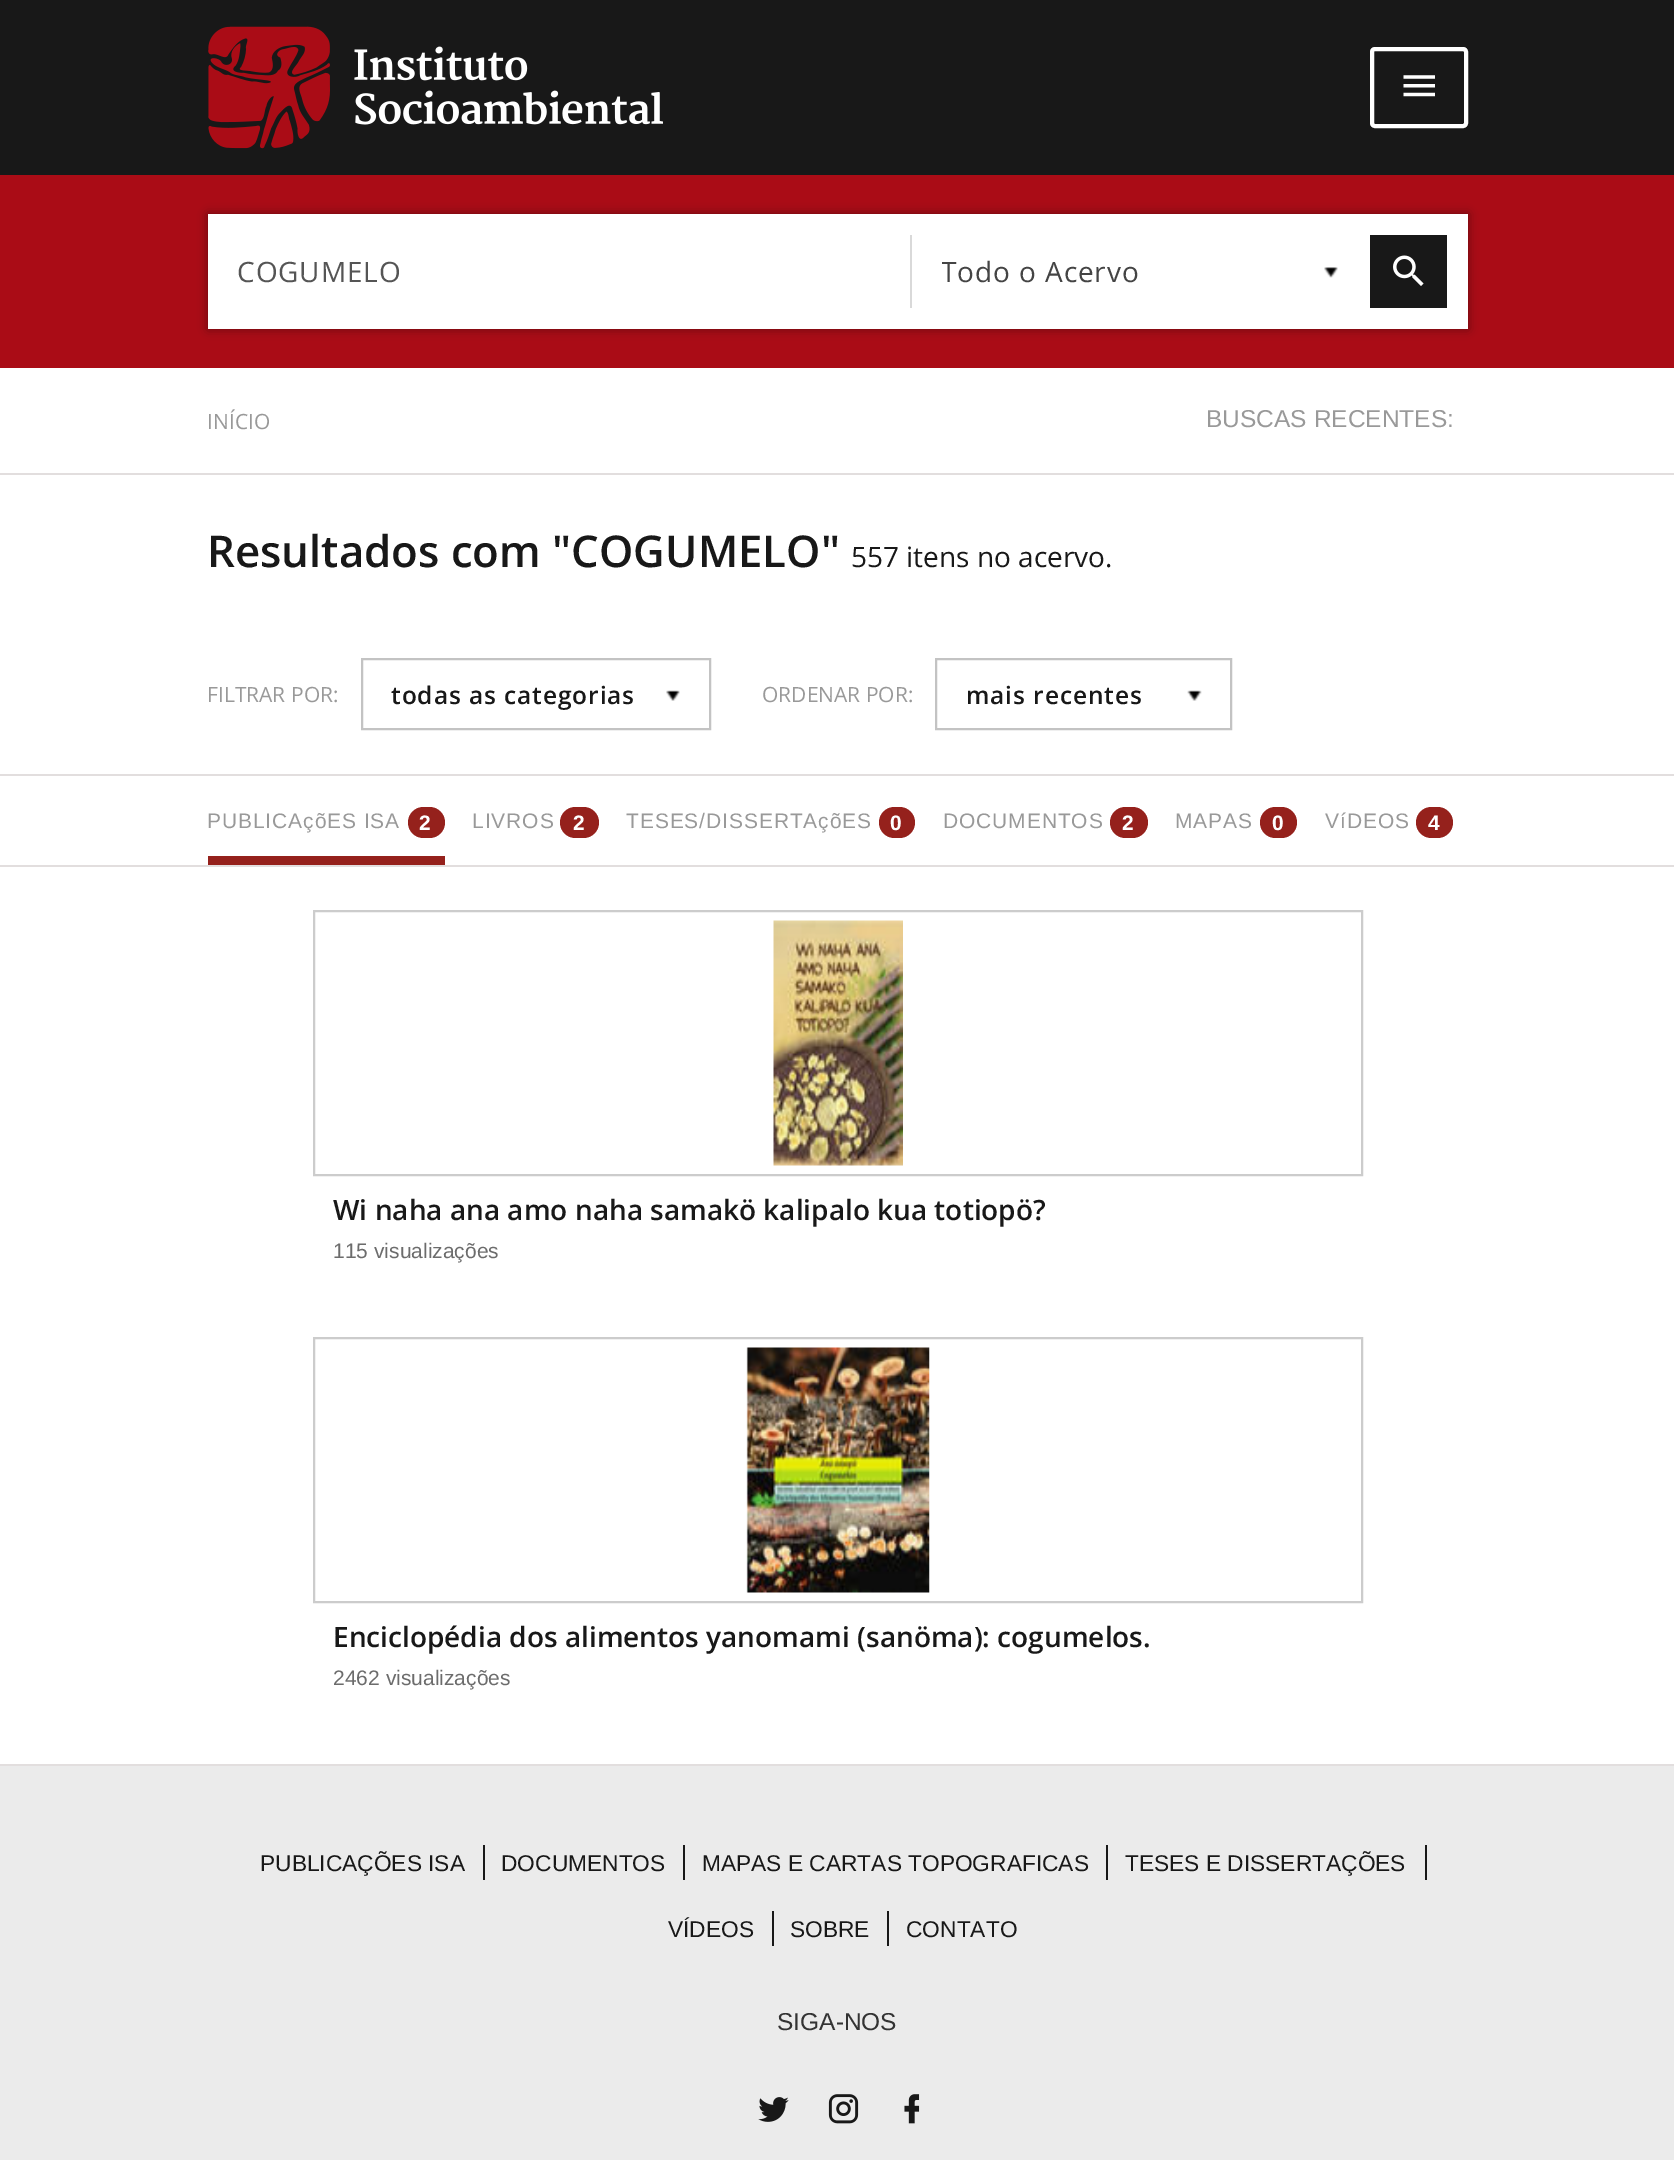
%!PS
<< /PageSize [1674 2160] /PageUsesTransparency true >> setpagedevice
/alpha { dup .setfillconstantalpha .setstrokeconstantalpha } def
/roundrect { 5 dict begin { /r /h /w /y /x } { exch def } forall
  x r add y moveto x w add y 2 copy h add r arct x w add y h add x 1 index r arct
  x y h add x y r arct x y 2 copy exch w add exch r arct closepath end } def
/shadow { 12 dict begin { /a /b /q /h /w /y /x } { exch def } forall gsave /was 0 def
  9 -2 -9 { dup b mul 4 div /e exch def 1 sub .425 mul 2.718 exch exp 1 add a .99 .min exch div /now exch def
    1 1 now sub 1 was sub div sub alpha /was now def
    w h .min e 2 mul add 0 gt { x e sub y e sub w e 2 mul add h e 2 mul add
      q e add b .6 mul add w h .min 2 div e add .min 0 .max roundrect fill } if } for grestore end } def
/picture { 5 dict begin { /h /w /y /x /name } { exch def } forall
  gsave x y translate w h scale
  w h 8 [w 0 0 h 0 0] name (r) file false 3 colorimage grestore end } def
0 .pushpdf14devicefilter
0 2160 translate 1 -1 scale
4 setmiterlimit
0.094 setgray
0 0 1674 2160 rectfill
(img1.rgb) 208 26 455 123 picture
1 setgray
4 setlinewidth
1372 49 94 77 3 roundrect stroke
(img2.rgb) 1403 75 32 22 picture
0.667 0.047 0.086 setrgbcolor
0 175 1674 193 rectfill
0 setgray
208 214 1260 115 0 5 0.4 shadow
1 setgray
208 214 1260 115 rectfill
0.851 setgray
910 235 2 73 rectfill
/OpenSans-Regular [28 0 0 -28 0 0] selectfont
0.333 setgray
237 282 moveto 0.9 0 (COGUMELO) ashow
gsave
942 252 350 39 rectclip
0.267 setgray
941 282 moveto 0.9 0 (Todo o Acervo) ashow
grestore
(img3.rgb) 1324 267 14 11 picture
0.094 setgray
1370 235 77 73 rectfill
(img4.rgb) 1393 255 31 31 picture
1 setgray
0 368 1674 1396 rectfill
/OpenSans-Regular [21 0 0 -21 0 0] selectfont
0.6 setgray
207 429 moveto (INÍCIO) show
/LiberationSans-Regular [24.5 0 0 -24.5 0 0] selectfont
1206 427 moveto (BUSCAS RECENTES:) show
0.886 0.871 0.871 setrgbcolor
0 473 1674 2 rectfill
/OpenSans-SemiBold [43.75 0 0 -43.75 0 0] selectfont
0.094 setgray
207 567 moveto (Resultados com "COGUMELO") show
/OpenSans-Regular [28 0 0 -28 0 0] selectfont
851 567 moveto (557 itens no acervo.) show
/OpenSans-Regular [21 0 0 -21 0 0] selectfont
0.6 setgray
207 702 moveto (FILTRAR POR:) show
0.765 setgray
2 setlinewidth
362 659 348 70 rectstroke
/OpenSans-SemiBold [24.5 0 0 -24.5 0 0] selectfont
0.094 setgray
391 704 moveto 0.9 0 (todas as categorias) ashow
(img5.rgb) 666 690 14 11 picture
/OpenSans-Regular [21 0 0 -21 0 0] selectfont
0.6 setgray
762 702 moveto (ORDENAR POR:) show
0.765 setgray
936 659 295 70 rectstroke
/OpenSans-SemiBold [24.5 0 0 -24.5 0 0] selectfont
0.094 setgray
966 704 moveto 0.9 0 (mais recentes) ashow
(img6.rgb) 1187 690 15 11 picture
0.886 0.871 0.871 setrgbcolor
0 774 1674 2 rectfill
0.584 0.129 0.11 setrgbcolor
208 856 237 9 rectfill
/LiberationSans-Regular [21 0 0 -21 0 0] selectfont
0.6 setgray
207 828 moveto 0.9 0 (PUBLICAçõES ISA) ashow
0.584 0.129 0.11 setrgbcolor
408 807 37 31 15.5 roundrect fill
/LiberationSans-Bold [21 0 0 -21 0 0] selectfont
1 setgray
419 830 moveto 0.9 0 (2) ashow
/LiberationSans-Regular [21 0 0 -21 0 0] selectfont
0.6 setgray
472 828 moveto 0.9 0 (LIVROS) ashow
0.584 0.129 0.11 setrgbcolor
560 807 39 31 15.5 roundrect fill
/LiberationSans-Bold [21 0 0 -21 0 0] selectfont
1 setgray
573 830 moveto 0.9 0 (2) ashow
/LiberationSans-Regular [21 0 0 -21 0 0] selectfont
0.6 setgray
626 828 moveto 0.9 0 (TESES/DISSERTAçõES) ashow
0.584 0.129 0.11 setrgbcolor
879 807 36 31 15.5 roundrect fill
/LiberationSans-Bold [21 0 0 -21 0 0] selectfont
1 setgray
890 830 moveto 0.9 0 (0) ashow
/LiberationSans-Regular [21 0 0 -21 0 0] selectfont
0.6 setgray
943 828 moveto 0.9 0 (DOCUMENTOS) ashow
0.584 0.129 0.11 setrgbcolor
1110 807 38 31 15.5 roundrect fill
/LiberationSans-Bold [21 0 0 -21 0 0] selectfont
1 setgray
1122 830 moveto 0.9 0 (2) ashow
/LiberationSans-Regular [21 0 0 -21 0 0] selectfont
0.6 setgray
1175 828 moveto 0.9 0 (MAPAS) ashow
0.584 0.129 0.11 setrgbcolor
1260 807 37 31 15.5 roundrect fill
/LiberationSans-Bold [21 0 0 -21 0 0] selectfont
1 setgray
1272 830 moveto 0.9 0 (0) ashow
/LiberationSans-Regular [21 0 0 -21 0 0] selectfont
0.6 setgray
1325 828 moveto 0.9 0 (VíDEOS) ashow
0.584 0.129 0.11 setrgbcolor
1416 807 37 31 15.5 roundrect fill
/LiberationSans-Bold [21 0 0 -21 0 0] selectfont
1 setgray
1428 830 moveto 0.9 0 (4) ashow
0.886 0.871 0.871 setrgbcolor
0 865 1674 2 rectfill
0.8 setgray
314 911 1048 264 rectstroke
(img7.rgb) 773 920 130 246 picture
/OpenSans-SemiBold [28 0 0 -28 0 0] selectfont
0.094 setgray
333 1220 moveto (Wi naha ana amo naha samakö kalipalo kua totiopö?) show
/LiberationSans-Regular [21 0 0 -21 0 0] selectfont
0.424 setgray
333 1258 moveto (115 visualizações) show
0.8 setgray
314 1338 1048 264 rectstroke
(img8.rgb) 746 1347 184 246 picture
/OpenSans-SemiBold [28 0 0 -28 0 0] selectfont
0.094 setgray
333 1647 moveto (Enciclopédia dos alimentos yanomami \(sanöma\): cogumelos.) show
/LiberationSans-Regular [21 0 0 -21 0 0] selectfont
0.424 setgray
333 1685 moveto (2462 visualizações) show
0.922 setgray
0 1766 1674 394 rectfill
0.886 0.871 0.871 setrgbcolor
0 1764 1674 2 rectfill
0.094 setgray
483 1845 2 35 rectfill
/LiberationSans-Regular [22.75 0 0 -22.75 0 0] selectfont
260 1871 moveto (PUBLICAÇÕES ISA) show
683 1845 2 35 rectfill
501 1871 moveto (DOCUMENTOS) show
1106 1845 2 35 rectfill
702 1871 moveto (MAPAS E CARTAS TOPOGRAFICAS) show
1425 1845 2 35 rectfill
1125 1871 moveto (TESES E DISSERTAÇÕES) show
772 1911 2 35 rectfill
668 1937 moveto (VÍDEOS) show
887 1911 2 35 rectfill
790 1937 moveto (SOBRE) show
906 1937 moveto (CONTATO) show
/LiberationSans-Regular [24.5 0 0 -24.5 0 0] selectfont
0.2 setgray
777 2030 moveto (SIGA-NOS) show
(img9.rgb) 758 2097 31 25 picture
(img10.rgb) 828 2094 31 30 picture
(img11.rgb) 904 2094 16 30 picture
.poppdf14devicefilter showpage
